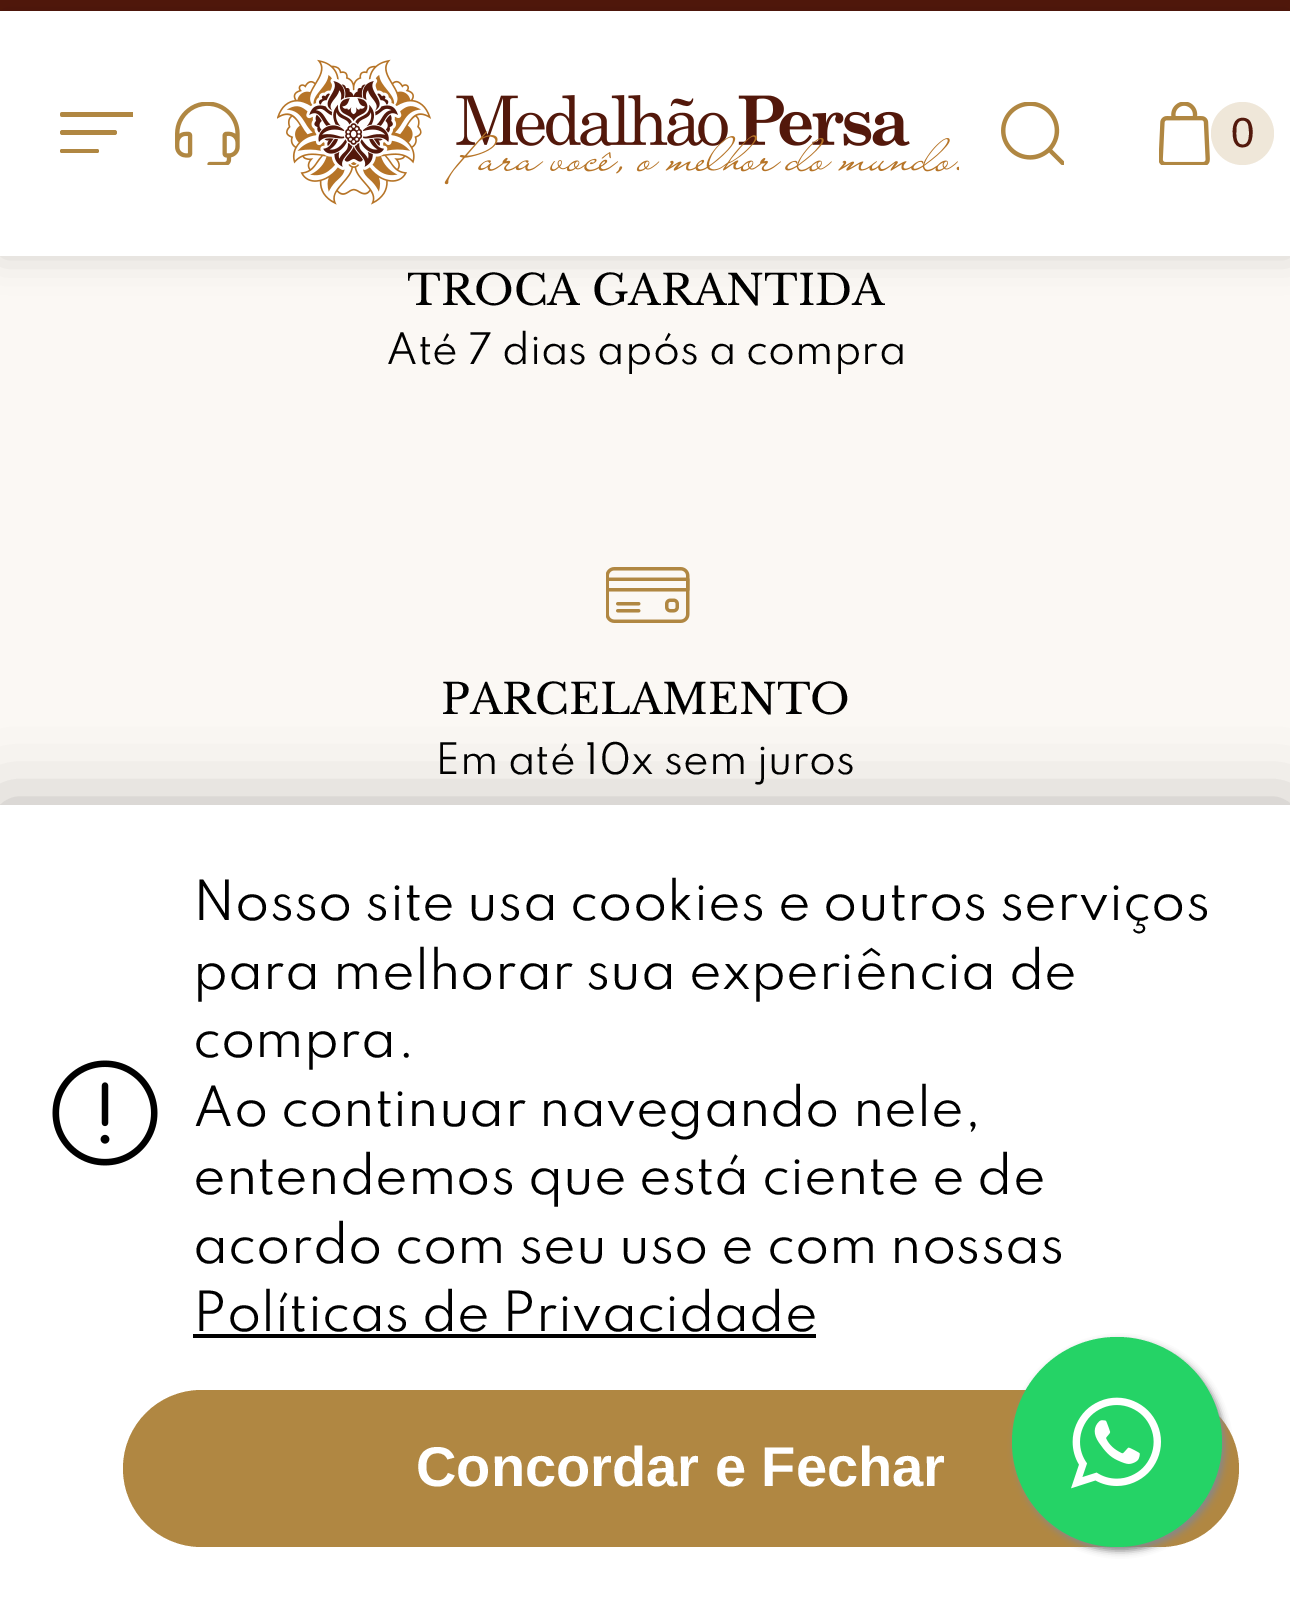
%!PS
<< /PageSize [1290 1615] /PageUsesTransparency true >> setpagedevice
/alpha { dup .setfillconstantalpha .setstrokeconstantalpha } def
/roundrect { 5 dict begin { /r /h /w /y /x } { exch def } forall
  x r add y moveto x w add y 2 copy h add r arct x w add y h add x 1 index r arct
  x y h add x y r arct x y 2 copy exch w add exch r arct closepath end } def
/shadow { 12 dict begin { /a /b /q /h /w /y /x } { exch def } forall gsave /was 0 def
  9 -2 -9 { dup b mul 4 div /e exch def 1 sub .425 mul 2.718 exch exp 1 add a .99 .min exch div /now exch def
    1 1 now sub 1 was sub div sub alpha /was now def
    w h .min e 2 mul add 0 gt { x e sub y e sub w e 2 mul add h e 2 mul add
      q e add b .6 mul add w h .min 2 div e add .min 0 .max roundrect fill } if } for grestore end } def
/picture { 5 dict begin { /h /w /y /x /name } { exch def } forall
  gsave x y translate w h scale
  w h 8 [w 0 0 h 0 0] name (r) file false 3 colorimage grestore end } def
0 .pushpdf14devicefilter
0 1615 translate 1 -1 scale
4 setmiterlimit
0.984 0.973 0.957 setrgbcolor
0 0 1290 1615 rectfill
0.325 0.094 0.043 setrgbcolor
0 0 1290 11 rectfill
0 setgray
0 11 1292 245 0 17.5 0.15 shadow
1 setgray
0 11 1290 245 rectfill
0.69 0.529 0.259 setrgbcolor
newpath 62.5 112 moveto 133 112 lineto 133 117 lineto 62.5 117 lineto 61 117 60 116 60 114.5 curveto 60 113 61 112 62.5 112 curveto closepath fill
60 130 57 5 2.5 roundrect fill
60 149 39 4 2 roundrect fill
(img1.rgb) 175 102 65 63 picture
(img2.rgb) 277 59 682 146 picture
(img3.rgb) 1001 102 63 63 picture
(img4.rgb) 1159 102 51 63 picture
0.937 0.906 0.851 setrgbcolor
newpath 1242.5 133.5 31.5 0 360 arc closepath fill
/LiberationSans-Regular [42 0 0 -42 0 0] selectfont
0.325 0.098 0.047 setrgbcolor
1231 147 moveto (0) show
0 setgray
0 805 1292 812 0 35 0.25 shadow
1 setgray
0 805 1290 810 rectfill
(img5.rgb) 52 1060 106 106 picture
/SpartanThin-Regular [49 0 0 -49 0 0] selectfont
0 setgray
193 920 moveto (Nosso site usa cookies e outros serviços) show
193 989 moveto (para melhorar sua experiência de) show
193 1057 moveto (compra.) show
193 1126 moveto (Ao continuar navegando nele,) show
193 1194 moveto (entendemos que está ciente e de) show
193 1263 moveto (acordo com seu uso e com nossas) show
193 1331 moveto (Políticas de Privacidade) show
193 1334 623 4 rectfill
0.69 0.529 0.259 setrgbcolor
123 1390 1116 157 78.5 roundrect fill
/LiberationSans-Bold [56 0 0 -56 0 0] selectfont
1 setgray
416 1486 moveto (Concordar e Fechar) show
/LibreBaskerville-Regular [42 0 0 -42 0 0] selectfont
0 setgray
407 305 moveto (TROCA GARANTIDA) show
/SpartanThin-Regular [38.5 0 0 -38.5 0 0] selectfont
386 364 moveto (Até 7 dias após a compra) show
(img6.rgb) 606 567 84 56 picture
/LibreBaskerville-Regular [42 0 0 -42 0 0] selectfont
441 714 moveto (PARCELAMENTO) show
/SpartanThin-Regular [38.5 0 0 -38.5 0 0] selectfont
435 774 moveto (Em até 10x sem juros) show
0.533 setgray
1015 1341 210 210 105 3.5 1 shadow
0.145 0.827 0.4 setrgbcolor
newpath 1117 1442 105 0 360 arc closepath fill
(img7.rgb) 1071 1397 90 92 picture
.poppdf14devicefilter showpage
